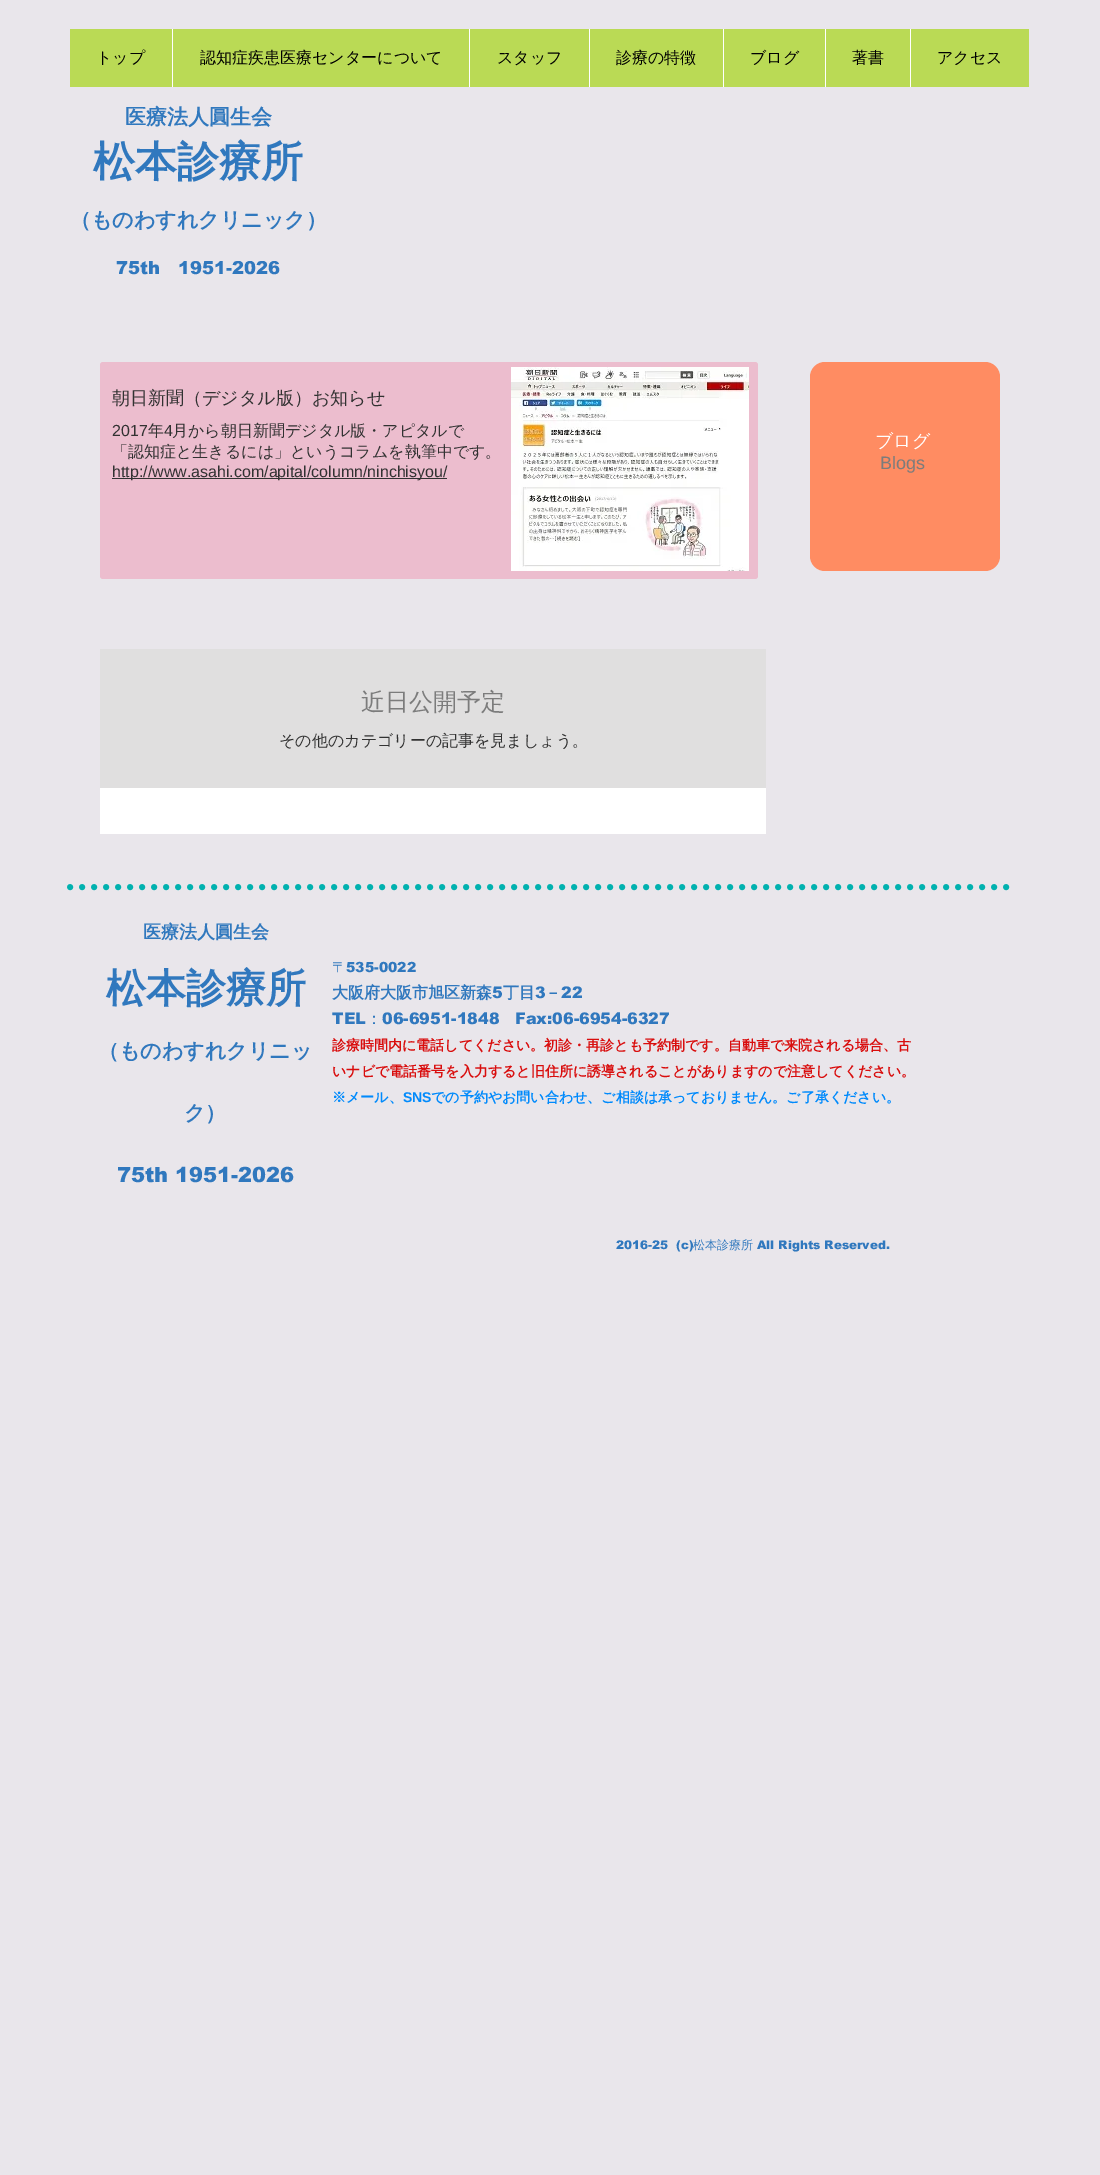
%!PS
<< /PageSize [1100 2175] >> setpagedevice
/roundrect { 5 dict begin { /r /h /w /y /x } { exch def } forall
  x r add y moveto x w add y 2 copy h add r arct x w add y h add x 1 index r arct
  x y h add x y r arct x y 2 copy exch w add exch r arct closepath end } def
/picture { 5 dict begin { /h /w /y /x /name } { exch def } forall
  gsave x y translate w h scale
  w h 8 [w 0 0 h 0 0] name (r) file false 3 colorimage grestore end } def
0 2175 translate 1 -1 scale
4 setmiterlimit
0.914 0.902 0.922 setrgbcolor
0 0 1100 2175 rectfill
0.729 0.855 0.333 setrgbcolor
70 29 959 58 rectfill
/WenQuanYiZenHei-Medium [16 0 0 -16 0 0] selectfont
0 setgray
96 63 moveto (トップ) show
1 setgray
172 29 1 58 rectfill
0 setgray
200 63 moveto (認知症疾患医療センターについて) show
1 setgray
469 29 1 58 rectfill
0 setgray
497 63 moveto (スタッフ) show
1 setgray
589 29 1 58 rectfill
0 setgray
616 63 moveto (診療の特徴) show
1 setgray
723 29 1 58 rectfill
0 setgray
750 63 moveto (ブログ) show
1 setgray
825 29 1 58 rectfill
0 setgray
852 63 moveto (著書) show
1 setgray
910 29 1 58 rectfill
0 setgray
937 63 moveto (アクセス) show
/WenQuanYiZenHei-Bold [21 0 0 -21 0 0] selectfont
0.188 0.471 0.745 setrgbcolor
125 124 moveto (医療法人圓生会) show
/WenQuanYiZenHei-Bold [42 0 0 -42 0 0] selectfont
93 176 moveto (松本診療所) show
/WenQuanYiZenHei-Bold [21 0 0 -21 0 0] selectfont
70 227 moveto (（ものわすれクリニック）) show
/arial-Black [18 0 0 -18 0 0] selectfont
116 274 moveto (75th) show
178 274 moveto (1951-2026) show
0.925 0.741 0.808 setrgbcolor
100 362 658 217 3 roundrect fill
/WenQuanYiZenHei-Medium [18 0 0 -18 0 0] selectfont
0.196 setgray
112 404 moveto (朝日新聞（デジタル版）お知らせ) show
(img1.rgb) 511 367 238 204 picture
/LiberationSans-Regular [16 0 0 -16 0 0] selectfont
112 436 moveto (2017) show
/WenQuanYiZenHei-Medium [16 0 0 -16 0 0] selectfont
148 436 moveto (年) show
/LiberationSans-Regular [16 0 0 -16 0 0] selectfont
164 436 moveto (4) show
/WenQuanYiZenHei-Medium [16 0 0 -16 0 0] selectfont
172 436 moveto (月から朝日新聞デジタル版・アピタルで) show
112 457 moveto (「認知症と生きるには」というコラムを執筆中です。) show
112 478 335 1 rectfill
/LiberationSans-Regular [16 0 0 -16 0 0] selectfont
112 477 moveto (http://www.asahi.com/apital/column/ninchisyou/) show
1 0.549 0.384 setrgbcolor
810 362 190 209 15 roundrect fill
/WenQuanYiZenHei-Medium [18 0 0 -18 0 0] selectfont
1 setgray
875 447 moveto (ブログ) show
/LiberationSans-Regular [18 0 0 -18 0 0] selectfont
0.486 setgray
880 469 moveto (Blogs) show
1 setgray
100 788 666 46 rectfill
0.878 0.875 0.875 setrgbcolor
100 649 666 139 rectfill
/WenQuanYiZenHei-Medium [24 0 0 -24 0 0] selectfont
0.486 setgray
361 710 moveto (近日公開予定) show
/WenQuanYiZenHei-Medium [16 0 0 -16 0 0] selectfont
0.196 setgray
279 746 moveto (その他のカテゴリーの記事を見ましょう。) show
0.004 0.694 0.686 setrgbcolor
6 setlinewidth
1 setlinecap
[0 12] 0 setdash
newpath 70 887 moveto 1012 887 lineto stroke
/WenQuanYiZenHei-Bold [18 0 0 -18 0 0] selectfont
0.188 0.471 0.745 setrgbcolor
143 938 moveto (医療法人圓生会) show
/WenQuanYiZenHei-Bold [40 0 0 -40 0 0] selectfont
106 1002 moveto (松本診療所) show
/WenQuanYiZenHei-Bold [21 0 0 -21 0 0] selectfont
98 1058 moveto (（ものわすれクリニッ) show
184 1120 moveto (ク）) show
/arial-Black [21 0 0 -21 0 0] selectfont
117 1182 moveto (75th 1951-2026) show
/WenQuanYiZenHei-Medium [14 0 0 -14 0 0] selectfont
332 972 moveto (〒) show
/arial-Black [14 0 0 -14 0 0] selectfont
346 972 moveto (535-0022) show
/WenQuanYiZenHei-Bold [16 0 0 -16 0 0] selectfont
332 998 moveto (大阪府大阪市旭区新森) show
/arial-Black [16 0 0 -16 0 0] selectfont
492 998 moveto (5) show
/WenQuanYiZenHei-Bold [16 0 0 -16 0 0] selectfont
503 998 moveto (丁目) show
/arial-Black [16 0 0 -16 0 0] selectfont
535 998 moveto (3) show
/WenQuanYiZenHei-Bold [16 0 0 -16 0 0] selectfont
545 998 moveto (－) show
/arial-Black [16 0 0 -16 0 0] selectfont
561 998 moveto (22) show
332 1024 moveto (TEL) show
/WenQuanYiZenHei-Medium [16 0 0 -16 0 0] selectfont
366 1024 moveto (：) show
/arial-Black [16 0 0 -16 0 0] selectfont
382 1024 moveto (06-6951-1848) show
515 1024 moveto (Fax:06-6954-6327) show
/WenQuanYiZenHei-Bold [14 0 0 -14 0 0] selectfont
0.851 0.051 0.051 setrgbcolor
332 1050 moveto (診療時間内に電話してください。初診・再診とも予約制です。自動車で来院される場合、古) show
332 1076 moveto (いナビで電話番号を入力すると旧住所に誘導されることがありますので注意してください。) show
0 0.541 0.988 setrgbcolor
332 1102 moveto (※メール、) show
/LiberationSans-Bold [14 0 0 -14 0 0] selectfont
403 1102 moveto (SNS) show
/WenQuanYiZenHei-Bold [14 0 0 -14 0 0] selectfont
431 1102 moveto (での予約やお問い合わせ、ご相談は承っておりません。ご了承ください。) show
/arial-Black [12 0 0 -12 0 0] selectfont
0.188 0.471 0.745 setrgbcolor
616 1249 moveto (2016-25  \(c\)) show
/WenQuanYiZenHei-Medium [12 0 0 -12 0 0] selectfont
693 1249 moveto (松本診療所) show
/arial-Black [12 0 0 -12 0 0] selectfont
757 1249 moveto (All Rights Reserved.) show
showpage
